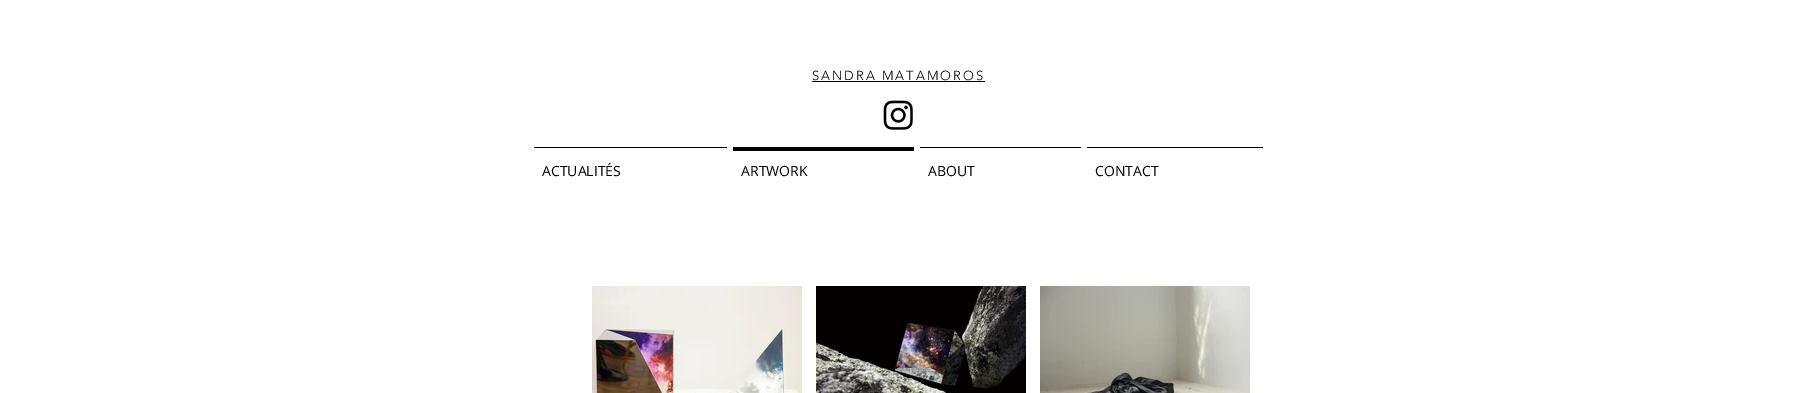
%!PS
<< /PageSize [1797 393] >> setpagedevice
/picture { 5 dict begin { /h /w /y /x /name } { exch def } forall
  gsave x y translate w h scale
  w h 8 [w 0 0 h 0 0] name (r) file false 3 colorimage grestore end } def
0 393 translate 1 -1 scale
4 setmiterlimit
1 setgray
0 0 1797 393 rectfill
/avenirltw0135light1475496-Light [13 0 0 -13 0 0] selectfont
0 setgray
812 80 moveto 2 0 (SANDRA MATAMOROS) ashow
812 81 173 1 rectfill
(img1.rgb) 883 100 30 30 picture
534 147 193 1 rectfill
/OpenSans-Regular [14 0 0 -14 0 0] selectfont
542 176 moveto (ACTUALITÉS) show
733 147 181 4 rectfill
741 176 moveto (ARTWORK) show
920 147 161 1 rectfill
928 176 moveto (ABOUT) show
1087 147 176 1 rectfill
1095 176 moveto (CONTACT) show
(img2.rgb) 592 286 210 107 picture
(img3.rgb) 816 286 210 107 picture
(img4.rgb) 1040 286 210 107 picture
showpage
